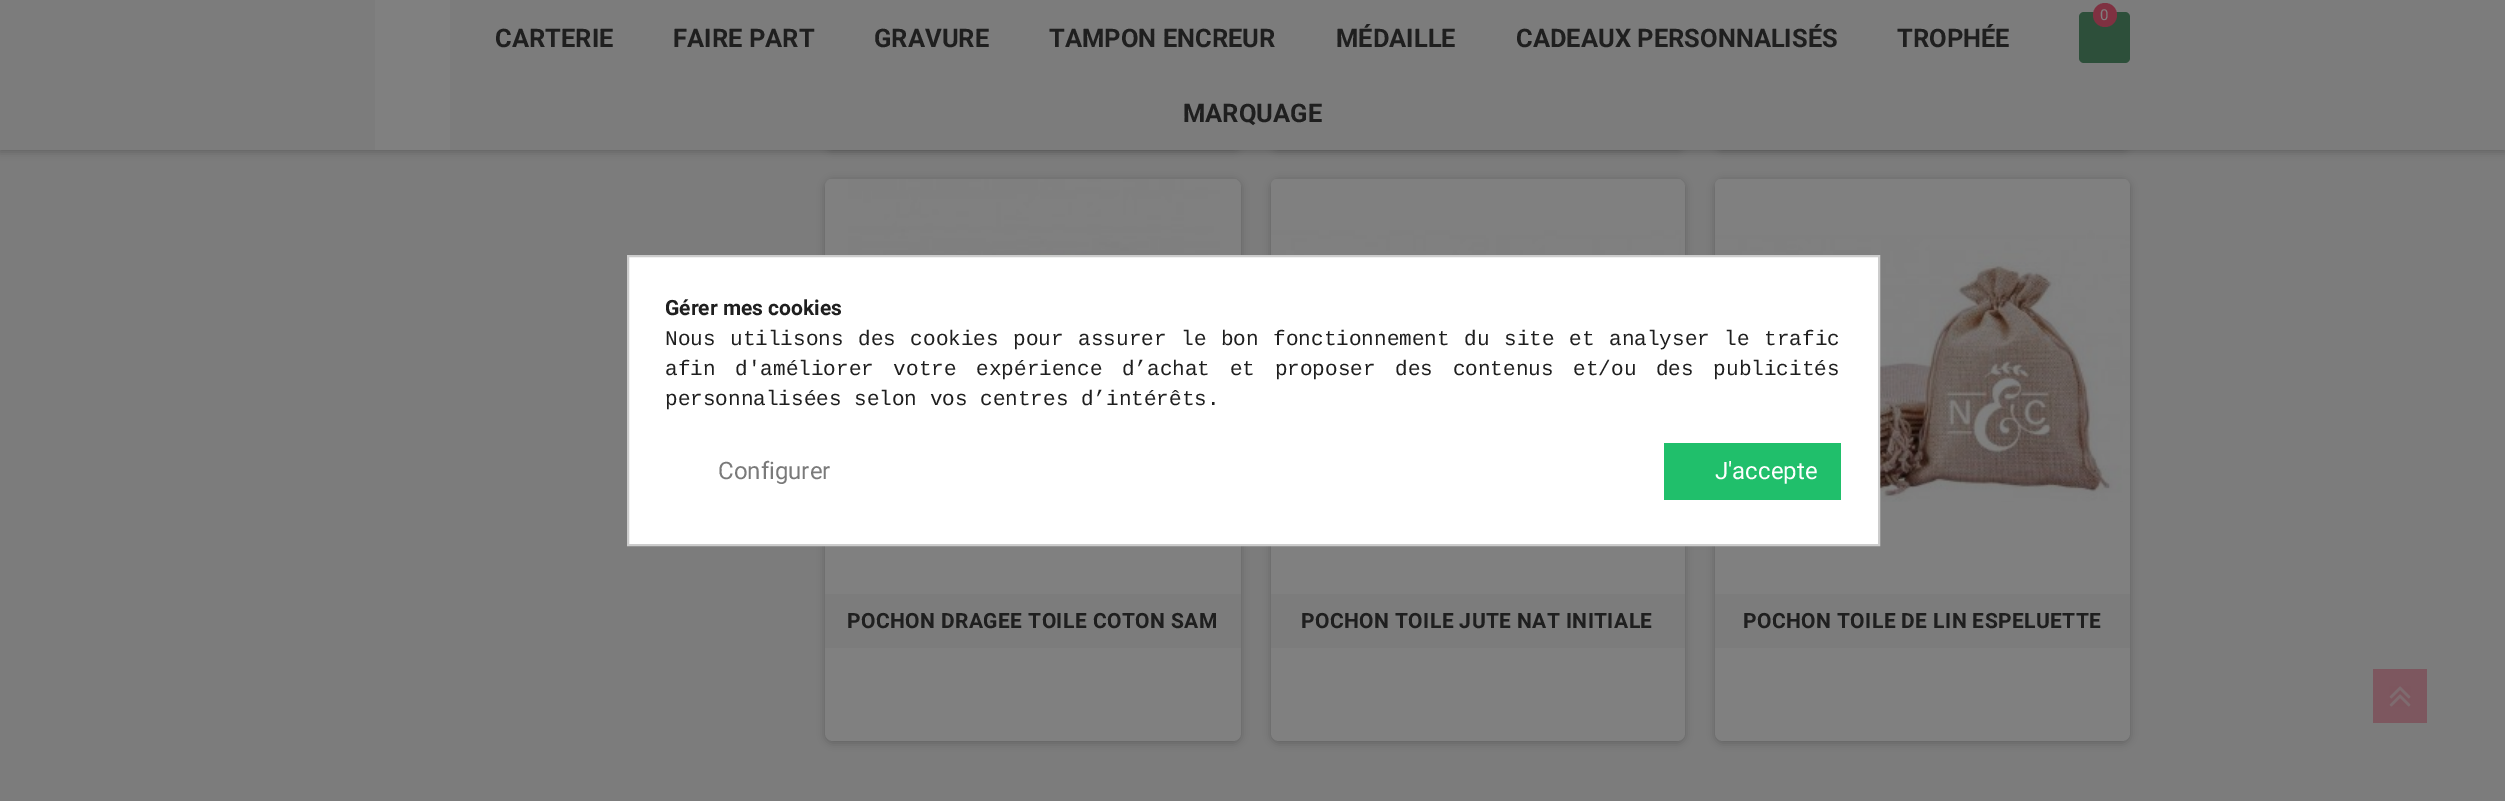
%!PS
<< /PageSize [2505 801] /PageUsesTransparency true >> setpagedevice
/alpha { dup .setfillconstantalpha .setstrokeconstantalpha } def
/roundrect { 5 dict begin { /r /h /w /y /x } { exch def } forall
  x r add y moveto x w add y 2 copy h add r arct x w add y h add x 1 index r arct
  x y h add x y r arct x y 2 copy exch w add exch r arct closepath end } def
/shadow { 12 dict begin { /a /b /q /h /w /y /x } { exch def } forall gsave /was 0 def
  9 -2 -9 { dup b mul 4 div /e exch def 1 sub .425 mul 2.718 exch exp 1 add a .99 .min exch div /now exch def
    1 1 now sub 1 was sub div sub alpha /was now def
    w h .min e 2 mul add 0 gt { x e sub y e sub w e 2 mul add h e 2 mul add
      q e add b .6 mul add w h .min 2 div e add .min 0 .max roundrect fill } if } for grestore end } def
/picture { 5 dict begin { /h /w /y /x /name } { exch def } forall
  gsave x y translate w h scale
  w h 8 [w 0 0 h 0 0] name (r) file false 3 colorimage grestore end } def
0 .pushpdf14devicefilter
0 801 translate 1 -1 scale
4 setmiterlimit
0.486 setgray
0 0 2505 801 rectfill
0 setgray
0 2 2505 150 0 4 0.2 shadow
825 -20 416 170 8 4 0.2 shadow
1271 -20 414 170 8 4 0.2 shadow
1715 -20 415 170 8 4 0.2 shadow
0.486 setgray
0 0 2505 150 rectfill
0.502 setgray
375 0 75 150 rectfill
0.176 0.31 0.227 setrgbcolor
2079 12 51 51 5 roundrect fill
0.498 0.192 0.255 setrgbcolor
newpath 2105 15 12 0 360 arc closepath fill
/Roboto-Regular [15 0 0 -15 0 0] selectfont
0.502 setgray
2100 20 moveto (0) show
/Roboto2-Bold [25.5 0 0 -25.5 0 0] selectfont
0.122 setgray
495 47 moveto (CARTERIE) show
673 47 moveto (FAIRE PART) show
874 47 moveto (GRAVURE) show
1049 47 moveto (TAMPON ENCREUR) show
1336 47 moveto (MÉDAILLE) show
1516 47 moveto (CADEAUX PERSONNALISÉS) show
1897 47 moveto (TROPHÉE) show
1183 122 moveto (MARQUAGE) show
0 setgray
825 180 416 563 8 4 0.2 shadow
0.502 setgray
825 179 416 562 8 roundrect fill
(img1.rgb) 825 179 412 76 picture
0.486 setgray
825 594 416 54 rectfill
/Roboto-Bold [21 0 0 -21 0 0] selectfont
0.122 setgray
847 628 moveto 0.4 0 (POCHON DRAGEE TOILE COTON SAM) ashow
0 setgray
1271 180 414 563 8 4 0.2 shadow
0.502 setgray
1271 179 414 562 8 roundrect fill
(img2.rgb) 1271 179 410 76 picture
0.486 setgray
1271 594 414 54 rectfill
0.122 setgray
1301 628 moveto 0.4 0 (POCHON TOILE JUTE NAT INITIALE) ashow
0 setgray
1715 180 415 563 8 4 0.2 shadow
0.502 setgray
1715 179 415 562 8 roundrect fill
(img3.rgb) 1715 179 415 323 picture
0.486 setgray
1715 594 415 54 rectfill
0.122 setgray
1743 628 moveto 0.4 0 (POCHON TOILE DE LIN ESPELUETTE) ashow
1 setgray
newpath 628 256 moveto 1879 256 lineto 1879 545 lineto 628 545 lineto closepath gsave fill grestore
0.8 setgray
2 setlinewidth
stroke
0.122 setgray
665 315 moveto (Gérer mes cookies) show
/LiberationMono-Regular [21 0 0 -21 0 0] selectfont
665 345 moveto 2 0 32 (Nous utilisons des cookies pour assurer le bon fonctionnement du site et analyser le trafic) widthshow
665 375 moveto 7.1 0 32 (afin d'améliorer votre expérience d’achat et proposer des contenus et/ou des publicités) widthshow
665 405 moveto (personnalisées selon vos centres d’intérêts.) show
/Roboto-Regular [24 0 0 -24 0 0] selectfont
0.478 setgray
718 479 moveto (Configurer) show
0.125 0.749 0.42 setrgbcolor
1664 443 177 57 rectfill
1 setgray
1715 479 moveto (J'accepte) show
0.49 0.341 0.373 setrgbcolor
2373 669 54 54 rectfill
(img4.rgb) 2389 686 22 21 picture
.poppdf14devicefilter showpage
